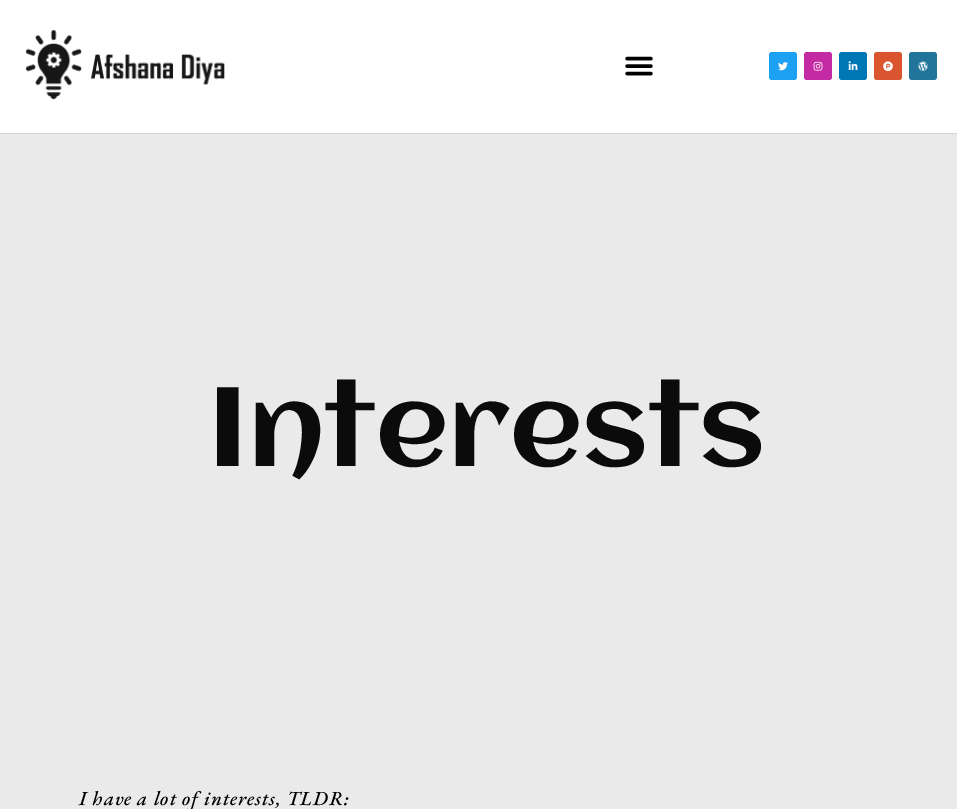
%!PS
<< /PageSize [957 809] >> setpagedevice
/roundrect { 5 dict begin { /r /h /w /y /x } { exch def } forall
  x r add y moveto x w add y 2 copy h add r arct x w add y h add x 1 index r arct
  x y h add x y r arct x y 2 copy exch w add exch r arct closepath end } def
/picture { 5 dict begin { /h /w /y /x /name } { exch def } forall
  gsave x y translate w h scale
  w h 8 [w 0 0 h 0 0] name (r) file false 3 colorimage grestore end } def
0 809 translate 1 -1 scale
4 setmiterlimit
1 setgray
0 0 957 809 rectfill
0.827 setgray
0 133 957 1 rectfill
(img1.rgb) 25 30 200 70 picture
(img2.rgb) 625 56 28 20 picture
0.114 0.631 0.949 setrgbcolor
769 52 28 28 3 roundrect fill
(img3.rgb) 778 62 10 9 picture
0.765 0.165 0.639 setrgbcolor
804 52 28 28 3 roundrect fill
(img4.rgb) 813 61 10 10 picture
0 0.467 0.71 setrgbcolor
839 52 28 28 3 roundrect fill
(img5.rgb) 848 61 10 9 picture
0.855 0.333 0.184 setrgbcolor
874 52 28 28 3 roundrect fill
(img6.rgb) 883 61 10 11 picture
0.129 0.459 0.608 setrgbcolor
909 52 28 28 3 roundrect fill
(img7.rgb) 918 61 10 11 picture
0.918 setgray
0 134 957 675 rectfill
/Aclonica-Regular [112 0 0 -112 0 0] selectfont
0.047 0.043 0.043 setrgbcolor
208 466 moveto (Interests) show
/EBGaramond-MediumItalic [20 0 0 -20 0 0] selectfont
0 setgray
79 805 moveto 0.9 0 (I have a lot of interests, TLDR:) ashow
showpage
